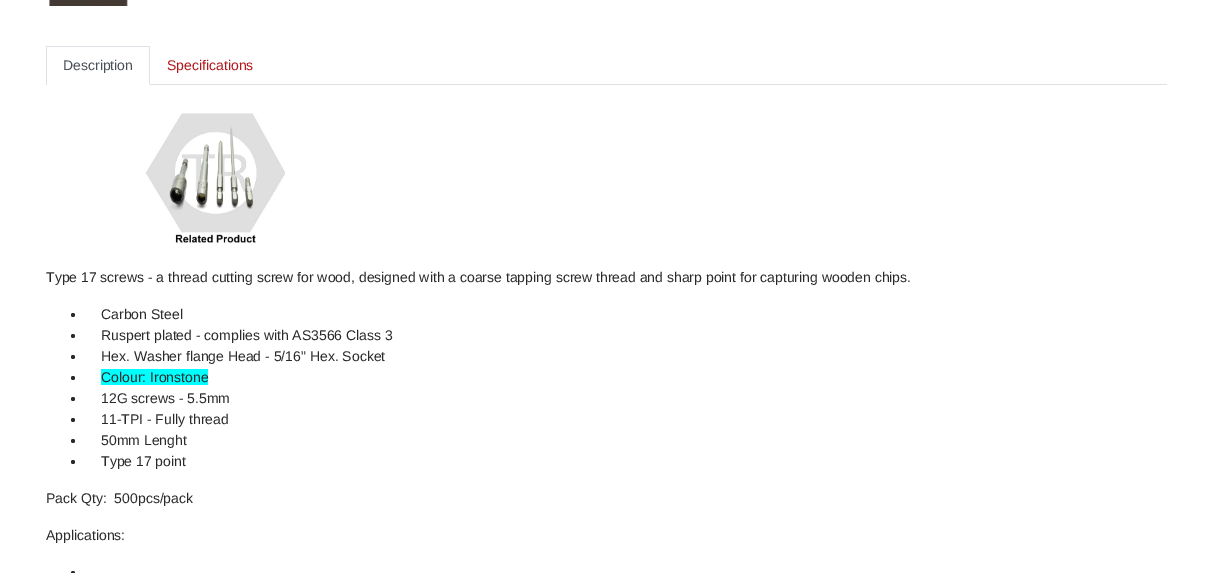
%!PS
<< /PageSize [1212 573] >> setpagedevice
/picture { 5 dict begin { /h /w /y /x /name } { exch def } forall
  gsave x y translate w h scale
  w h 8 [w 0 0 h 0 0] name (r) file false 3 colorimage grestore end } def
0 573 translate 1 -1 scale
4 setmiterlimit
1 setgray
0 0 1212 573 rectfill
(img1.rgb) 49 0 79 6 picture
0.871 0.886 0.902 setrgbcolor
150 84 1017 1 rectfill
46 46 104 1 rectfill
149 46 1 39 rectfill
1 setgray
149 84 1 1 rectfill
0.871 0.886 0.902 setrgbcolor
46 46 1 39 rectfill
/LiberationSans-Regular [14 0 0 -14 0 0] selectfont
0.286 0.314 0.341 setrgbcolor
63 70 moveto (Description) show
0.698 0.09 0.106 setrgbcolor
167 70 moveto (Specifications) show
(img2.rgb) 146 113 139 130 picture
0.165 setgray
46 282 moveto (Type 17 screws - a thread cutting screw for wood, designed with a coarse tapping screw thread and sharp point for capturing wooden chips.) show
newpath 73 315 2 0 360 arc closepath fill
101 319 moveto (Carbon Steel) show
newpath 73 336 2 0 360 arc closepath fill
101 340 moveto (Ruspert plated - complies with AS3566 Class 3) show
newpath 73 357 2 0 360 arc closepath fill
101 361 moveto (Hex. Washer flange Head - 5/16" Hex. Socket) show
newpath 73 378 2 0 360 arc closepath fill
0 1 1 setrgbcolor
101 369 107 16 rectfill
0.165 setgray
101 382 moveto (Colour: Ironstone) show
newpath 73 399 2 0 360 arc closepath fill
101 403 moveto (12G screws - 5.5mm) show
newpath 73 420 2 0 360 arc closepath fill
101 424 moveto (11-TPI - Fully thread) show
newpath 73 441 2 0 360 arc closepath fill
101 445 moveto (50mm Lenght) show
newpath 73 462 2 0 360 arc closepath fill
101 466 moveto (Type 17 point) show
46 503 moveto (Pack Qty:  500pcs/pack) show
46 540 moveto (Applications:) show
newpath 73 573 2 0 360 arc closepath fill
showpage
